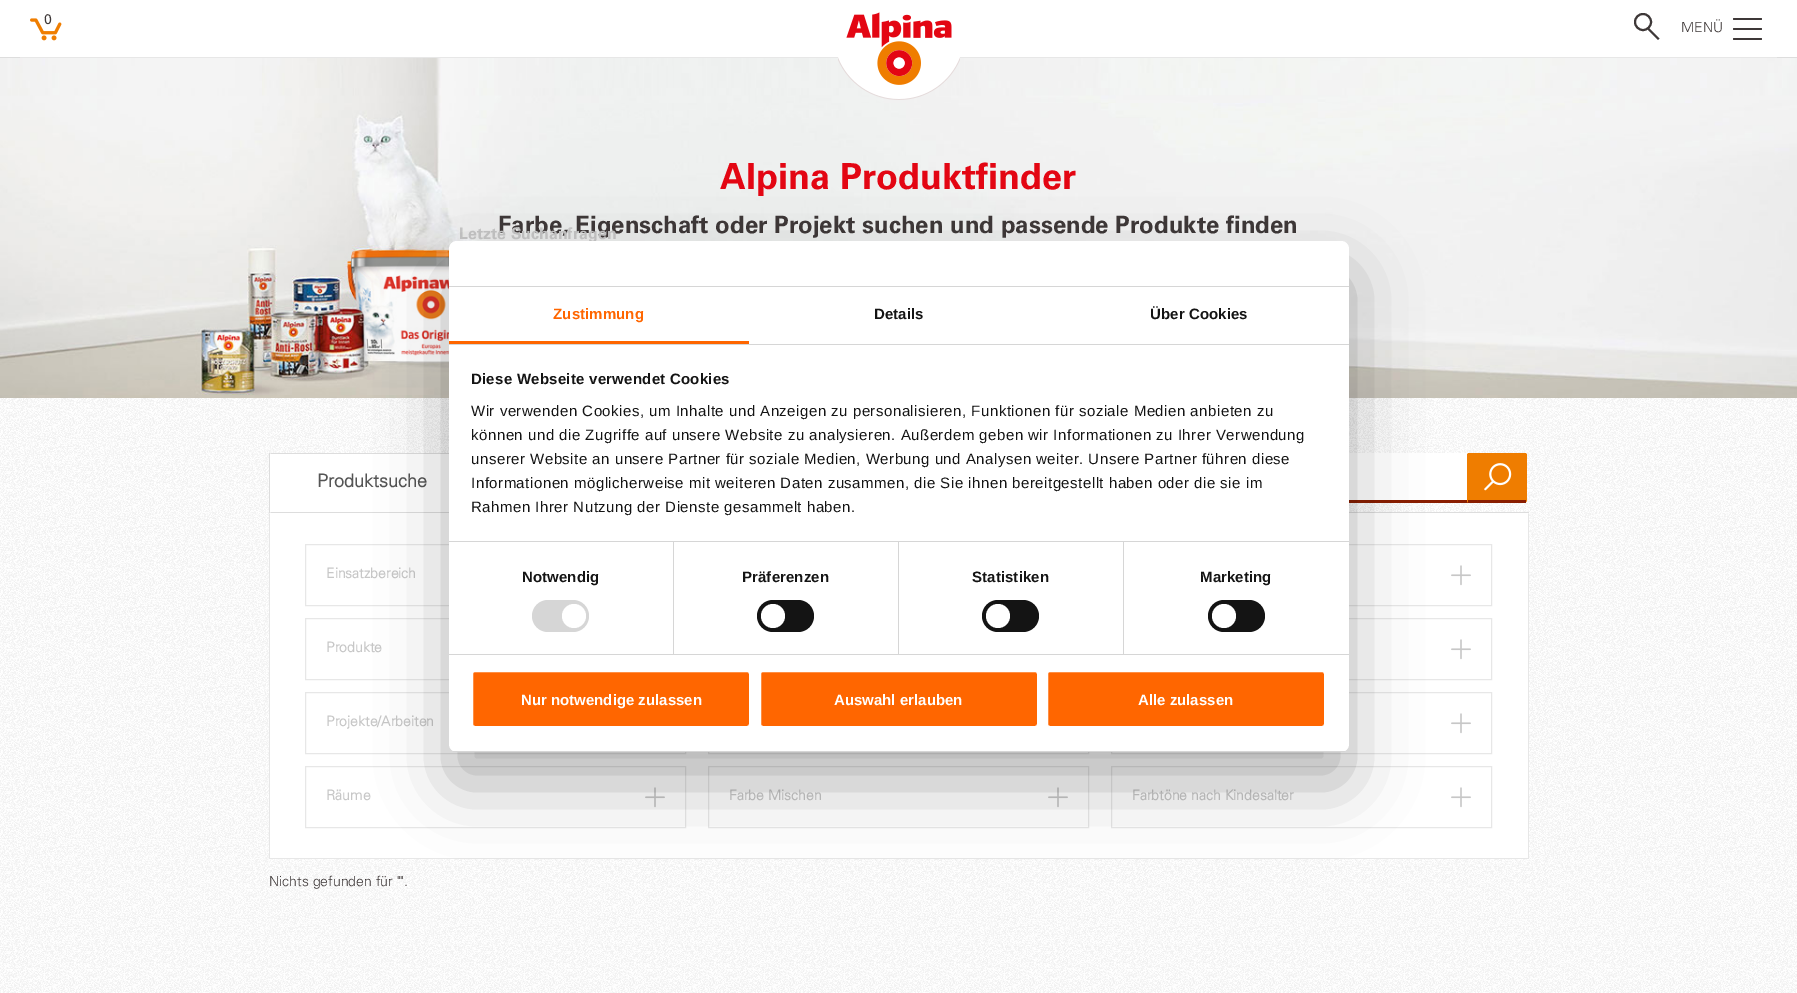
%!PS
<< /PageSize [1797 993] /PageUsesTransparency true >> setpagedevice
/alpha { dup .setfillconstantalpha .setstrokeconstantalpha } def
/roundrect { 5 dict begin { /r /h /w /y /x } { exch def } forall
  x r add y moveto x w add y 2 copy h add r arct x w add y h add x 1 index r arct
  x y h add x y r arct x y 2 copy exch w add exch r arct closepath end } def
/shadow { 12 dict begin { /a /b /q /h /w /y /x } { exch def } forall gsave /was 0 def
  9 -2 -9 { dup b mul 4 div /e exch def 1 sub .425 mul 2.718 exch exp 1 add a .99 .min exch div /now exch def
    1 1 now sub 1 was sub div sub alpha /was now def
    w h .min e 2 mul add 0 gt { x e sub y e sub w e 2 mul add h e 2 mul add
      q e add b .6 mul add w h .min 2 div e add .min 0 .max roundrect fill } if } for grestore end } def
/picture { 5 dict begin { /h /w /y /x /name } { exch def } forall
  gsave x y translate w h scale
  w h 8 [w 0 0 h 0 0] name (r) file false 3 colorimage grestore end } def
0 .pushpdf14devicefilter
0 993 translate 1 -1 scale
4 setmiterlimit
1 setgray
0 0 1797 993 rectfill
(img1.rgb) 0 398 1797 595 picture
0.867 setgray
0 57 1797 1 rectfill
1 setgray
20 0 1757 58 4 roundrect fill
0.906 setgray
20 57 1757 1 rectfill
(img4.rgb) 0 58 1797 340 picture
(img2.rgb) 838 12 122 88 picture
/Univers-Regular [14 0 0 -14 0 0] selectfont
0.243 0.22 0.22 setrgbcolor
44 24 moveto (0) show
(img3.rgb) 30 18 32 23 picture
2 setlinewidth
newpath 1643 22 8 0 360 arc closepath stroke
newpath 1649 28 moveto 1659.5 38.5 lineto 1658 40 lineto 1647.5 29.5 lineto closepath fill
/Univers-Light [14 0 0 -14 0 0] selectfont
1681 32 moveto (MENÜ) show
1733 28 29 2 1 roundrect fill
1733 18 29 2 1 roundrect fill
1733 38 29 2 1 roundrect fill
/Univers-Bold [36 0 0 -36 0 0] selectfont
0.89 0.024 0.075 setrgbcolor
720 189 moveto (Alpina Produktfinder) show
/Univers-Bold [24 0 0 -24 0 0] selectfont
0.243 0.22 0.22 setrgbcolor
498 233 moveto (Farbe, Eigenschaft oder Projekt suchen und passende Produkte finden) show
/Univers-Bold [16 0 0 -16 0 0] selectfont
0.78 setgray
459 239 moveto (Letzte Suchanfragen) show
0.867 setgray
1349 512 180 1 rectfill
269 453 1 60 rectfill
1 setgray
270 453 179 60 rectfill
0.867 setgray
newpath 270 453 moveto 475 453 lineto 474 454 lineto 271 454 lineto closepath fill
newpath 475 513 moveto 270 513 lineto 271 512 lineto 474 512 lineto closepath fill
/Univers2-Bold [18 0 0 -18 0 0] selectfont
0.333 setgray
317 487 moveto (Produktsuche) show
1 setgray
1349 453 120 47 rectfill
0.537 0.114 0 setrgbcolor
1349 500 120 3 rectfill
0.937 0.49 0 setrgbcolor
newpath 1469 453 moveto 1525 453 lineto 1526 453 1527 454 1527 455 curveto 1527 500 lineto 1527 501.5 1525.5 503 1524 503 curveto 1469 503 lineto 1468 503 1467 502 1467 501 curveto 1467 455 lineto 1467 454 1468 453 1469 453 curveto closepath fill
0.537 0.114 0 setrgbcolor
1468 500 58 3 rectfill
(img5.rgb) 1484 463 28 28 picture
1 setgray
269 513 1260 345 rectfill
0.906 setgray
newpath 1529 513 moveto 1529 859 lineto 1528 858 lineto 1528 514 lineto closepath fill
269 858 1260 1 rectfill
newpath 269 859 moveto 269 513 lineto 270 514 lineto 270 858 lineto closepath fill
1 setlinewidth
305.5 544.5 380 61 rectstroke
/Univers2-Bold [14 0 0 -14 0 0] selectfont
0.78 setgray
326 578 moveto (Einsatzbereich) show
0.906 setgray
305.5 618.5 380 61 rectstroke
0.78 setgray
326 652 moveto (Produkte) show
0.906 setgray
305.5 692.5 380 61 rectstroke
0.78 setgray
326 726 moveto (Projekte/Arbeiten) show
0.906 setgray
305.5 766.5 380 61 rectstroke
0.78 setgray
326 800 moveto (Räume) show
(img6.rgb) 645 787 20 21 picture
0.906 setgray
708.5 692.5 380 61 rectstroke
708.5 766.5 380 61 rectstroke
0.78 setgray
729 800 moveto (Farbe Mischen) show
(img6.rgb) 1048 787 20 21 picture
0.906 setgray
1111.5 544.5 380 61 rectstroke
(img6.rgb) 1451 565 20 21 picture
1111.5 618.5 380 61 rectstroke
(img6.rgb) 1451 639 20 21 picture
1111.5 692.5 380 61 rectstroke
(img6.rgb) 1451 713 20 21 picture
1111.5 766.5 380 61 rectstroke
0.78 setgray
1132 800 moveto (Farbtöne nach Kindesalter) show
(img6.rgb) 1451 787 20 21 picture
/Univers-Light [14 0 0 -14 0 0] selectfont
0.243 0.22 0.22 setrgbcolor
269 886 moveto (Nichts gefunden für "".) show
0 setgray
449 273 900 511 8 34 0.3 shadow
1 setgray
449 241 900 511 8 roundrect fill
0.839 setgray
449 286 900 1 rectfill
449 344 900 1 rectfill
1 0.4 0 setrgbcolor
449 341 300 3 rectfill
/LiberationSans-Bold [15 0 0 -15 0 0] selectfont
553 319 moveto 0.1 0 (Zustimmung) ashow
0.078 setgray
874 319 moveto 0.1 0 (Details) ashow
1150 319 moveto 0.1 0 (Über Cookies) ashow
0.839 setgray
449 541 900 1 rectfill
0.078 setgray
471 384 moveto 0.25 0 (Diese Webseite verwendet Cookies) ashow
/LiberationSans-Regular [15 0 0 -15 0 0] selectfont
471 416 moveto 0.5 0 (Wir verwenden Cookies, um Inhalte und Anzeigen zu personalisieren, Funktionen für soziale Medien anbieten zu) ashow
471 440 moveto 0.5 0 (können und die Zugriffe auf unsere Website zu analysieren. Außerdem geben wir Informationen zu Ihrer Verwendung) ashow
471 464 moveto 0.5 0 (unserer Website an unsere Partner für soziale Medien, Werbung und Analysen weiter. Unsere Partner führen diese) ashow
471 488 moveto 0.5 0 (Informationen möglicherweise mit weiteren Daten zusammen, die Sie ihnen bereitgestellt haben oder die sie im) ashow
471 512 moveto 0.5 0 (Rahmen Ihrer Nutzung der Dienste gesammelt haben.) ashow
0.839 setgray
449 654 900 1 rectfill
673 542 1 112 rectfill
/LiberationSans-Bold [15 0 0 -15 0 0] selectfont
0.078 setgray
522 582 moveto 0.1 0 (Notwendig) ashow
0.839 setgray
532 600 57 32 16 roundrect fill
1 setgray
newpath 574 616 12 0 360 arc closepath fill
0.839 setgray
898 542 1 112 rectfill
0.078 setgray
742 582 moveto 0.1 0 (Präferenzen) ashow
757 600 57 32 16 roundrect fill
1 setgray
newpath 773 616 12 0 360 arc closepath fill
0.839 setgray
1123 542 1 112 rectfill
0.078 setgray
972 582 moveto 0.1 0 (Statistiken) ashow
982 600 57 32 16 roundrect fill
1 setgray
newpath 998 616 12 0 360 arc closepath fill
0.078 setgray
1200 582 moveto 0.1 0 (Marketing) ashow
1208 600 57 32 16 roundrect fill
1 setgray
newpath 1224 616 12 0 360 arc closepath fill
gsave
449 241 900 511 8 roundrect clip newpath
0.839 setgray
449 751 900 1 rectfill
grestore
1 0.4 0 setrgbcolor
472 671 278 56 3 roundrect gsave fill grestore
1 setgray
2 setlinewidth
stroke
521 705 moveto (Nur notwendige zulassen) show
1 0.4 0 setrgbcolor
760 671 278 56 3 roundrect gsave fill grestore
1 setgray
stroke
834 705 moveto (Auswahl erlauben) show
1 0.4 0 setrgbcolor
1047 671 278 56 3 roundrect gsave fill grestore
1 setgray
stroke
1138 705 moveto (Alle zulassen) show
.poppdf14devicefilter showpage
